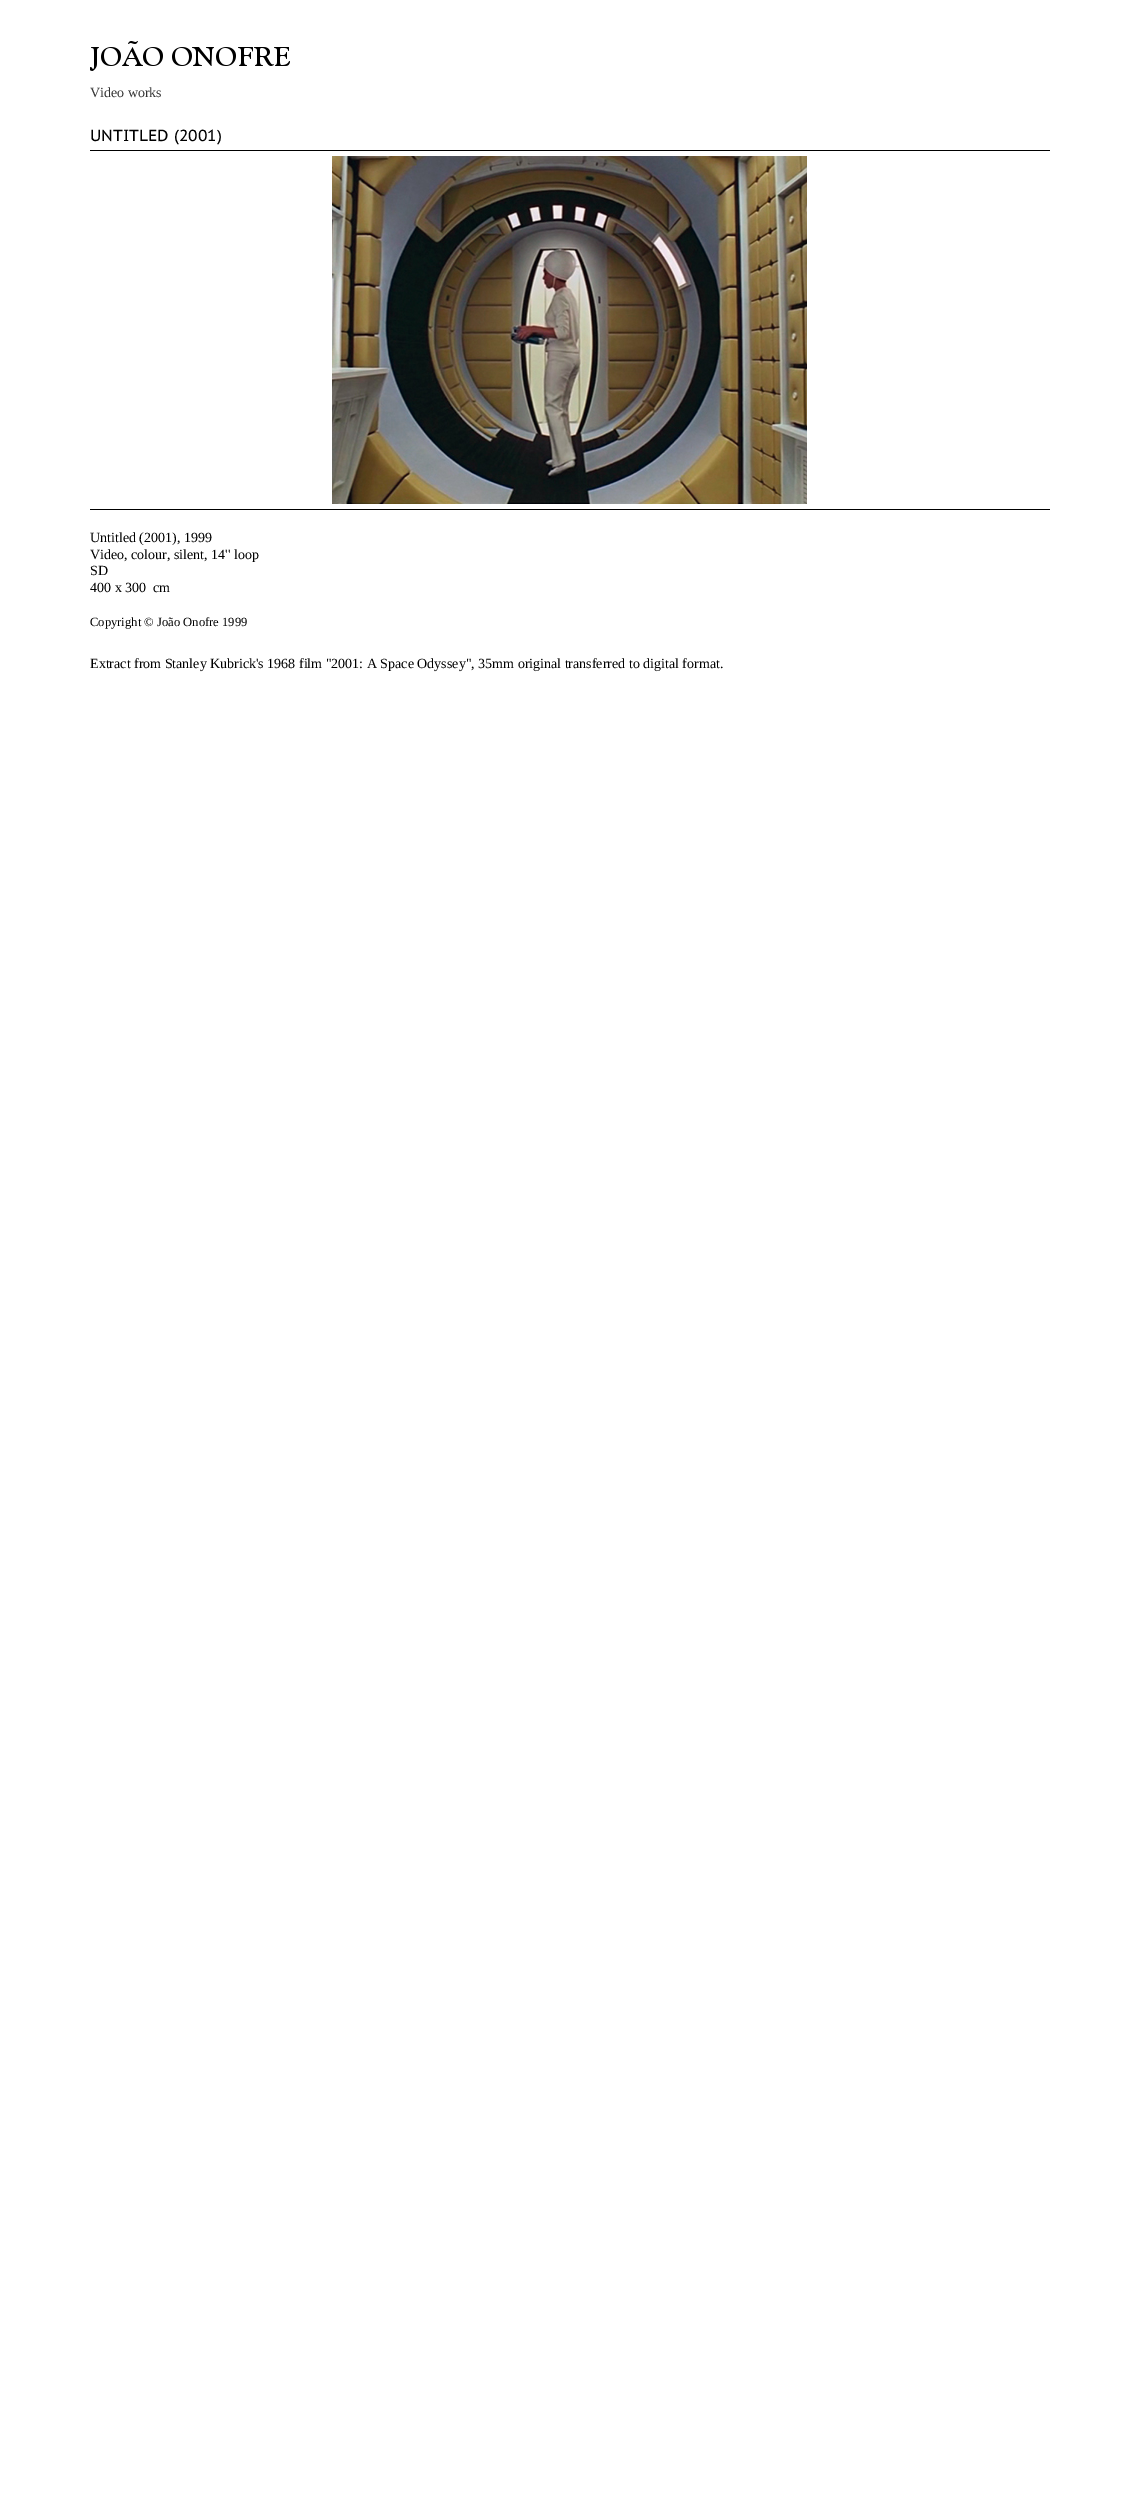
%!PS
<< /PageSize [1139 2515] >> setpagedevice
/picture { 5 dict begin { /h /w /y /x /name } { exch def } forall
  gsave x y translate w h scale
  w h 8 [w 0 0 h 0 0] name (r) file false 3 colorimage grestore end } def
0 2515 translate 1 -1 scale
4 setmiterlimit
1 setgray
0 0 1139 2515 rectfill
(img1.rgb) 90 41 200 30 picture
/LiberationSerif-Regular [14 0 0 -14 0 0] selectfont
0.2 setgray
90 97 moveto (Video works) show
/PTSansCaption-Regular [16 0 0 -16 0 0] selectfont
0 setgray
90 141 moveto (UNTITLED \(2001\)) show
90 150 960 1 rectfill
90 509 960 1 rectfill
(img2.rgb) 332 156 475 348 picture
/LiberationSerif-Regular [14 0 0 -14 0 0] selectfont
90 542 moveto (Untitled \(2001\), 1999) show
90 559 moveto (Video, colour, silent, 14'' loop) show
90 575 moveto (SD) show
90 592 moveto (400 x 300  cm) show
/LiberationSerif-Regular [12.6 0 0 -12.6 0 0] selectfont
90 626 moveto (Copyright © João Onofre 1999) show
/LiberationSerif-Regular [14 0 0 -14 0 0] selectfont
90 668 moveto (Extract from Stanley Kubrick's 1968 film "2001: A Space Odyssey", 35mm original transferred to digital format.) show
showpage
